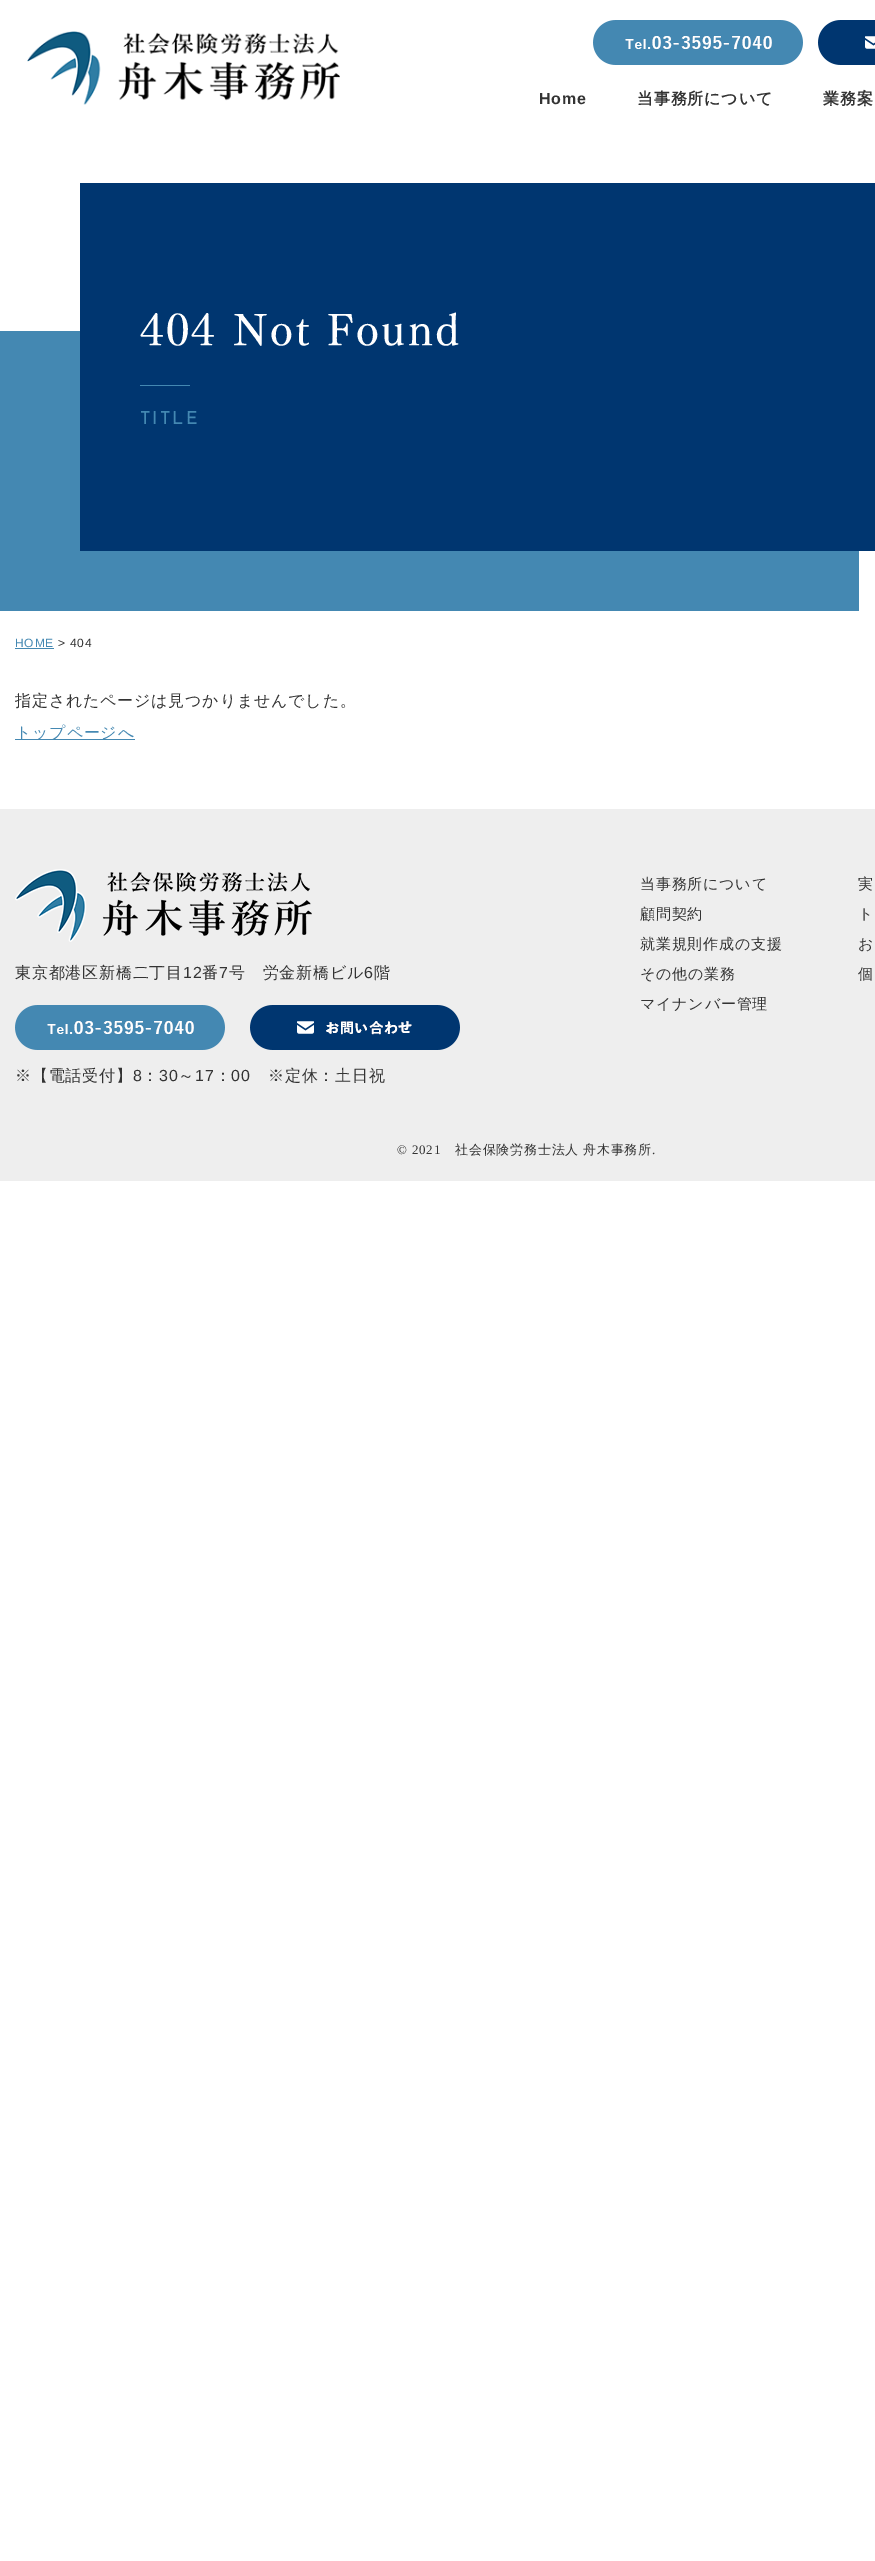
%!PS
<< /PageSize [875 2561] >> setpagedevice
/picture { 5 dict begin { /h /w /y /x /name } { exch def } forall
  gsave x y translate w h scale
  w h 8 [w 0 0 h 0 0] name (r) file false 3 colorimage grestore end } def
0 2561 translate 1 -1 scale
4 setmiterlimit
1 setgray
0 0 875 2561 rectfill
(img1.rgb) 27 31 313 74 picture
(img2.rgb) 593 20 210 45 picture
(img3.rgb) 818 20 57 45 picture
/LiberationSans-Bold [16 0 0 -16 0 0] selectfont
0.2 setgray
539 104 moveto 0.8 0 (Home) ashow
/WenQuanYiZenHei-Bold [16 0 0 -16 0 0] selectfont
637 104 moveto 0.8 0 (当事務所について) ashow
823 104 moveto 0.8 0 (業務案) ashow
0.267 0.533 0.698 setrgbcolor
0 331 859 280 rectfill
0 0.212 0.439 setrgbcolor
80 183 795 368 rectfill
/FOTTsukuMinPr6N-SemiBold [44 0 0 -44 0 0] selectfont
1 setgray
140 347 moveto 2.25 0 (404 Not Found) ashow
0.267 0.533 0.698 setrgbcolor
140 385 50 1 rectfill
/JosefinSans-Regular [18 0 0 -18 0 0] selectfont
140 424 moveto 2 0 (TITLE) ashow
/LiberationSans-Regular [12 0 0 -12 0 0] selectfont
15 647 moveto 0.8 0 (HOME) ashow
15 648 39 1 rectfill
0.2 setgray
58 647 moveto 0.8 0 (> 404) ashow
/WenQuanYiZenHei-Medium [16 0 0 -16 0 0] selectfont
15 706 moveto 0.8 0 (指定されたページは見つかりませんでした。) ashow
0.267 0.533 0.698 setrgbcolor
15 739 120 1 rectfill
15 738 moveto 0.8 0 (トップページへ) ashow
0.933 setgray
0 809 875 372 rectfill
/WenQuanYiZenHei-Medium [15 0 0 -15 0 0] selectfont
0.2 setgray
640 889 moveto 0.8 0 (当事務所について) ashow
640 919 moveto 0.8 0 (顧問契約) ashow
640 949 moveto 0.8 0 (就業規則作成の支援) ashow
640 979 moveto 0.8 0 (その他の業務) ashow
640 1009 moveto 0.8 0 (マイナンバー管理) ashow
858 889 moveto 0.8 0 (実) ashow
858 919 moveto 0.8 0 (ト) ashow
858 949 moveto 0.8 0 (お) ashow
858 979 moveto 0.8 0 (個) ashow
(img4.rgb) 15 869 297 73 picture
/WenQuanYiZenHei-Medium [16 0 0 -16 0 0] selectfont
15 978 moveto 0.8 0 (東京都港区新橋二丁目) ashow
/LiberationSans-Regular [16 0 0 -16 0 0] selectfont
183 978 moveto 0.8 0 (12) ashow
/WenQuanYiZenHei-Medium [16 0 0 -16 0 0] selectfont
202 978 moveto 0.8 0 (番) ashow
/LiberationSans-Regular [16 0 0 -16 0 0] selectfont
219 978 moveto 0.8 0 (7) ashow
/WenQuanYiZenHei-Medium [16 0 0 -16 0 0] selectfont
229 978 moveto 0.8 0 (号　労金新橋ビル) ashow
/LiberationSans-Regular [16 0 0 -16 0 0] selectfont
364 978 moveto 0.8 0 (6) ashow
/WenQuanYiZenHei-Medium [16 0 0 -16 0 0] selectfont
374 978 moveto 0.8 0 (階) ashow
(img5.rgb) 15 1005 210 45 picture
(img6.rgb) 250 1005 210 45 picture
15 1081 moveto 0.8 0 (※【電話受付】) ashow
/LiberationSans-Regular [16 0 0 -16 0 0] selectfont
133 1081 moveto 0.8 0 (8) ashow
/WenQuanYiZenHei-Medium [16 0 0 -16 0 0] selectfont
142 1081 moveto 0.8 0 (：) ashow
/LiberationSans-Regular [16 0 0 -16 0 0] selectfont
159 1081 moveto 0.8 0 (30) ashow
/WenQuanYiZenHei-Medium [16 0 0 -16 0 0] selectfont
178 1081 moveto 0.8 0 (～) ashow
/LiberationSans-Regular [16 0 0 -16 0 0] selectfont
195 1081 moveto 0.8 0 (17) ashow
/WenQuanYiZenHei-Medium [16 0 0 -16 0 0] selectfont
215 1081 moveto 0.8 0 (：) ashow
/LiberationSans-Regular [16 0 0 -16 0 0] selectfont
231 1081 moveto 0.8 0 (00) ashow
/WenQuanYiZenHei-Medium [16 0 0 -16 0 0] selectfont
268 1081 moveto 0.8 0 (※定休：土日祝) ashow
/LiberationSerif-Regular [13 0 0 -13 0 0] selectfont
397 1154 moveto 0.8 0 (© 2021) ashow
/WenQuanYiZenHei-Medium [13 0 0 -13 0 0] selectfont
455 1154 moveto 0.8 0 (社会保険労務士法人) ashow
583 1154 moveto 0.8 0 (舟木事務所) ashow
/LiberationSerif-Regular [13 0 0 -13 0 0] selectfont
652 1154 moveto 0.8 0 (.) ashow
showpage
